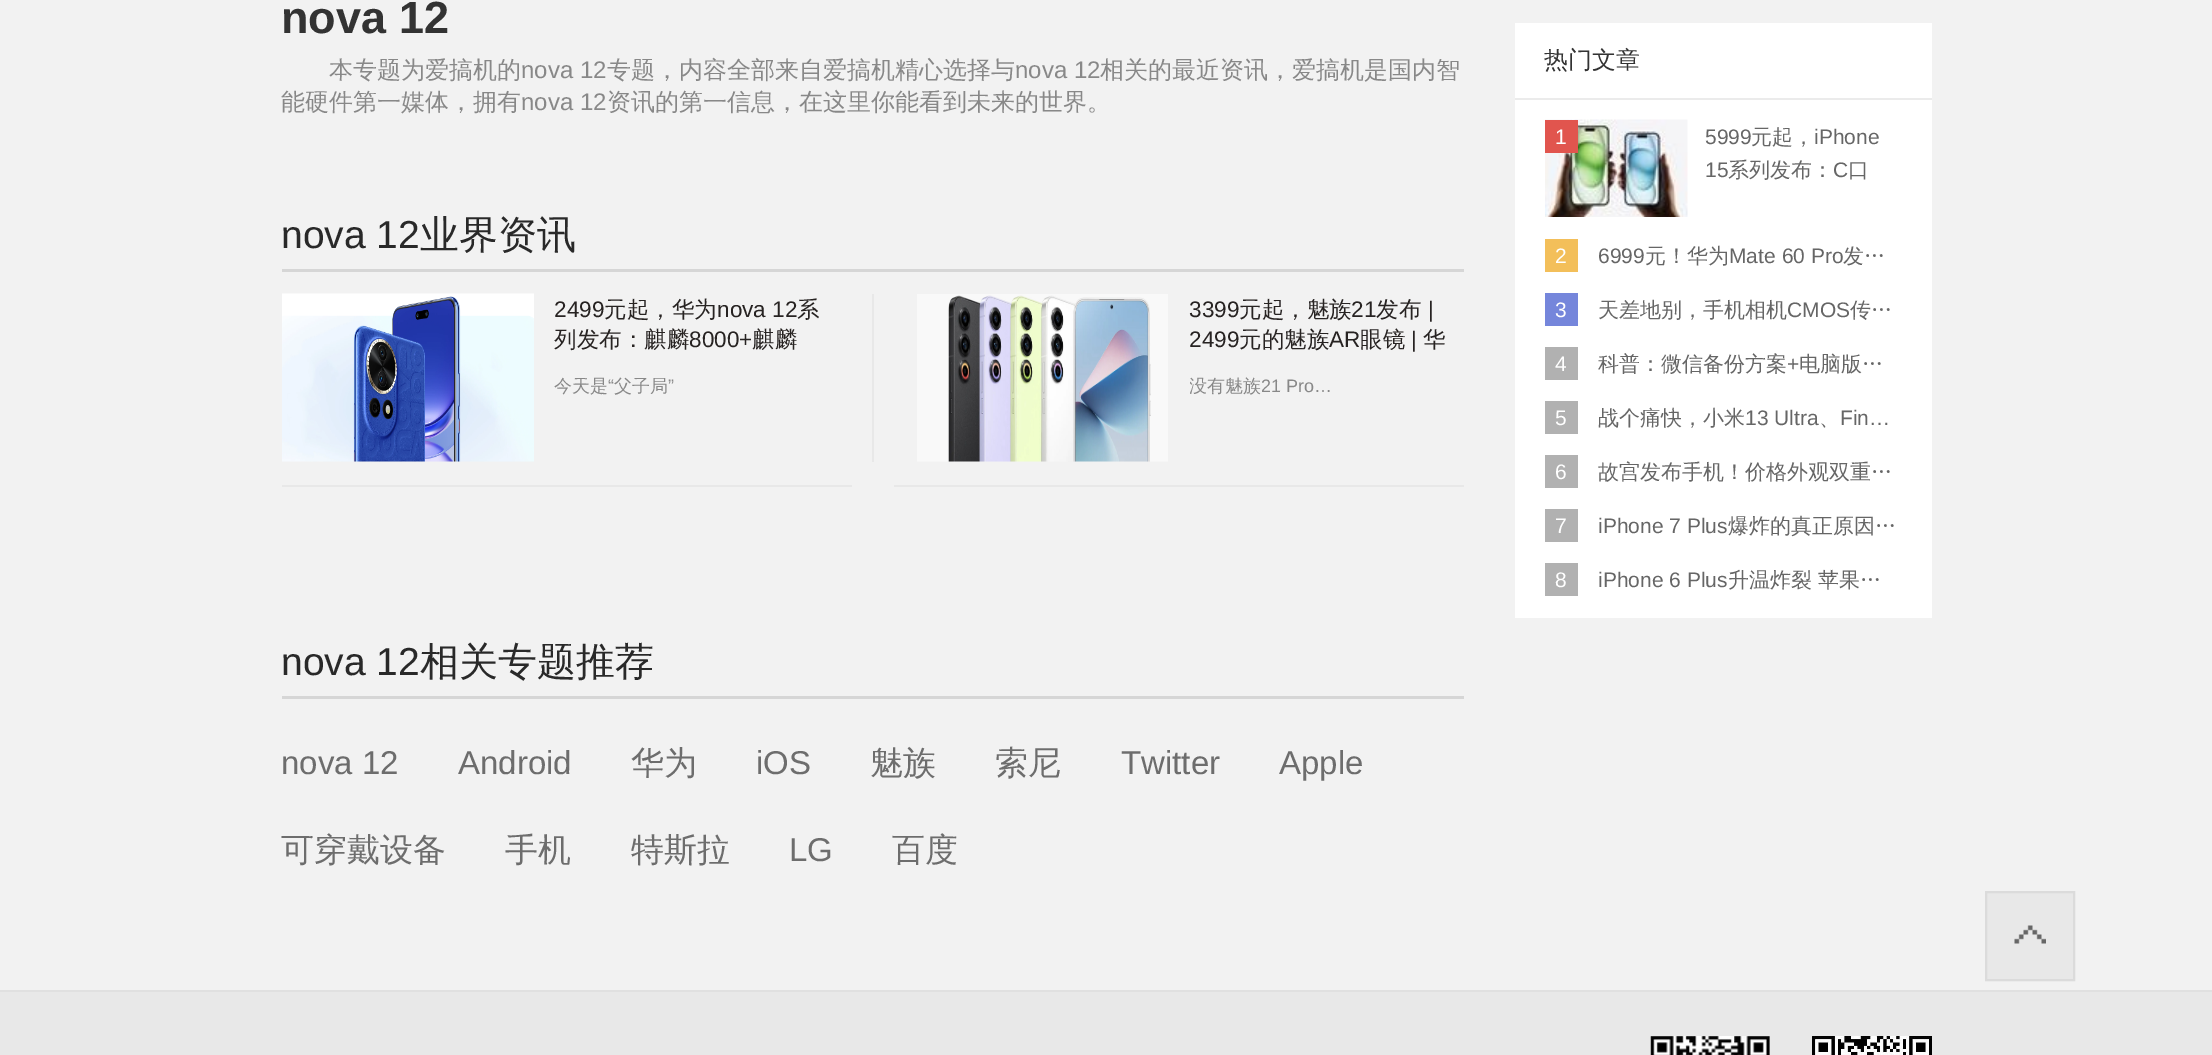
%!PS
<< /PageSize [2212 1055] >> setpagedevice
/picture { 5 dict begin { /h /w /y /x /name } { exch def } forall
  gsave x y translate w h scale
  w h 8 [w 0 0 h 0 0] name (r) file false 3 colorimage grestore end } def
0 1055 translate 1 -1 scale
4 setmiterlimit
0.949 setgray
0 0 2212 1055 rectfill
/LiberationSans-Bold [45 0 0 -45 0 0] selectfont
0.2 setgray
281 33 moveto (nova 12) show
/WenQuanYiZenHei-Medium [24 0 0 -24 0 0] selectfont
0.533 setgray
329 78 moveto (本专题为爱搞机的) show
/LiberationSans-Regular [24 0 0 -24 0 0] selectfont
521 78 moveto (nova 12) show
/WenQuanYiZenHei-Medium [24 0 0 -24 0 0] selectfont
607 78 moveto (专题，内容全部来自爱搞机精心选择与) show
/LiberationSans-Regular [24 0 0 -24 0 0] selectfont
1015 78 moveto (nova 12) show
/WenQuanYiZenHei-Medium [24 0 0 -24 0 0] selectfont
1100 78 moveto (相关的最近资讯，爱搞机是国内智) show
281 110 moveto (能硬件第一媒体，拥有) show
/LiberationSans-Regular [24 0 0 -24 0 0] selectfont
521 110 moveto (nova 12) show
/WenQuanYiZenHei-Medium [24 0 0 -24 0 0] selectfont
607 110 moveto (资讯的第一信息，在这里你能看到未来的世界。) show
0.839 setgray
282 269 1182 3 rectfill
/LiberationSans-Regular [39 0 0 -39 0 0] selectfont
0.161 setgray
281 248 moveto (nova 12) show
/WenQuanYiZenHei-Medium [39 0 0 -39 0 0] selectfont
420 248 moveto (业界资讯) show
0.91 setgray
282 485 570 2 rectfill
(img1.rgb) 282 293 252 169 picture
/LiberationSans-Regular [22.5 0 0 -22.5 0 0] selectfont
0.153 0.137 0.133 setrgbcolor
554 317 moveto (2499) show
/WenQuanYiZenHei-Medium [22.5 0 0 -22.5 0 0] selectfont
604 317 moveto (元起，华为) show
/LiberationSans-Regular [22.5 0 0 -22.5 0 0] selectfont
717 317 moveto (nova 12) show
/WenQuanYiZenHei-Medium [22.5 0 0 -22.5 0 0] selectfont
797 317 moveto (系) show
554 347 moveto (列发布：麒麟) show
/LiberationSans-Regular [22.5 0 0 -22.5 0 0] selectfont
689 347 moveto (8000+) show
/WenQuanYiZenHei-Medium [22.5 0 0 -22.5 0 0] selectfont
752 347 moveto (麒麟) show
/WenQuanYiZenHei-Medium [18 0 0 -18 0 0] selectfont
0.533 setgray
554 392 moveto (今天是) show
/LiberationSans-Regular [18 0 0 -18 0 0] selectfont
608 392 moveto (“) show
/WenQuanYiZenHei-Medium [18 0 0 -18 0 0] selectfont
614 392 moveto (父子局) show
/LiberationSans-Regular [18 0 0 -18 0 0] selectfont
668 392 moveto (”) show
0.91 setgray
872 294 2 168 rectfill
894 485 570 2 rectfill
(img2.rgb) 917 294 251 168 picture
/LiberationSans-Regular [22.5 0 0 -22.5 0 0] selectfont
0.153 0.137 0.133 setrgbcolor
1189 317 moveto (3399) show
/WenQuanYiZenHei-Medium [22.5 0 0 -22.5 0 0] selectfont
1239 317 moveto (元起，魅族) show
/LiberationSans-Regular [22.5 0 0 -22.5 0 0] selectfont
1351 317 moveto (21) show
/WenQuanYiZenHei-Medium [22.5 0 0 -22.5 0 0] selectfont
1376 317 moveto (发布) show
/LiberationSans-Regular [22.5 0 0 -22.5 0 0] selectfont
1428 317 moveto (|) show
1189 347 moveto (2499) show
/WenQuanYiZenHei-Medium [22.5 0 0 -22.5 0 0] selectfont
1239 347 moveto (元的魅族) show
/LiberationSans-Regular [22.5 0 0 -22.5 0 0] selectfont
1329 347 moveto (AR) show
/WenQuanYiZenHei-Medium [22.5 0 0 -22.5 0 0] selectfont
1360 347 moveto (眼镜) show
/LiberationSans-Regular [22.5 0 0 -22.5 0 0] selectfont
1411 347 moveto (|) show
/WenQuanYiZenHei-Medium [22.5 0 0 -22.5 0 0] selectfont
1423 347 moveto (华) show
gsave
1190 354 274 72 rectclip
/WenQuanYiZenHei-Medium [18 0 0 -18 0 0] selectfont
0.533 setgray
1189 392 moveto (没有魅族) show
grestore
/LiberationSans-Regular [18 0 0 -18 0 0] selectfont
0.533 setgray
1261 392 moveto (21 Pro…) show
0.839 setgray
282 696 1182 3 rectfill
/LiberationSans-Regular [39 0 0 -39 0 0] selectfont
0.161 setgray
281 675 moveto (nova 12) show
/WenQuanYiZenHei-Medium [39 0 0 -39 0 0] selectfont
420 675 moveto (相关专题推荐) show
/LiberationSans-Regular [33 0 0 -33 0 0] selectfont
0.427 setgray
281 774 moveto (nova 12) show
458 774 moveto (Android) show
/WenQuanYiZenHei-Medium [33 0 0 -33 0 0] selectfont
631 774 moveto (华为) show
/LiberationSans-Regular [33 0 0 -33 0 0] selectfont
756 774 moveto (iOS) show
/WenQuanYiZenHei-Medium [33 0 0 -33 0 0] selectfont
870 774 moveto (魅族) show
995 774 moveto (索尼) show
/LiberationSans-Regular [33 0 0 -33 0 0] selectfont
1121 774 moveto (Twitter) show
1279 774 moveto (Apple) show
/WenQuanYiZenHei-Medium [33 0 0 -33 0 0] selectfont
281 861 moveto (可穿戴设备) show
505 861 moveto (手机) show
631 861 moveto (特斯拉) show
/LiberationSans-Regular [33 0 0 -33 0 0] selectfont
789 861 moveto (LG) show
/WenQuanYiZenHei-Medium [33 0 0 -33 0 0] selectfont
892 861 moveto (百度) show
1 setgray
1515 23 417 595 rectfill
0.922 setgray
1515 98 417 2 rectfill
/WenQuanYiZenHei-Medium [24 0 0 -24 0 0] selectfont
0.2 setgray
1544 68 moveto (热门文章) show
(img3.rgb) 1545 119 143 98 picture
/LiberationSans-Regular [21 0 0 -21 0 0] selectfont
0.4 setgray
1705 144 moveto (5999) show
/WenQuanYiZenHei-Medium [21 0 0 -21 0 0] selectfont
1751 144 moveto (元起，) show
/LiberationSans-Regular [21 0 0 -21 0 0] selectfont
1814 144 moveto (iPhone) show
1705 177 moveto (15) show
/WenQuanYiZenHei-Medium [21 0 0 -21 0 0] selectfont
1728 177 moveto (系列发布：) show
/LiberationSans-Regular [21 0 0 -21 0 0] selectfont
1833 177 moveto (C) show
/WenQuanYiZenHei-Medium [21 0 0 -21 0 0] selectfont
1848 177 moveto (口) show
0.882 0.333 0.306 setrgbcolor
1545 120 33 33 rectfill
/LiberationSans-Regular [21 0 0 -21 0 0] selectfont
1 setgray
1555 144 moveto (1) show
0.953 0.749 0.353 setrgbcolor
1545 239 33 33 rectfill
1 setgray
1555 263 moveto (2) show
0.4 setgray
1598 263 moveto (6999) show
/WenQuanYiZenHei-Medium [21 0 0 -21 0 0] selectfont
1645 263 moveto (元！华为) show
/LiberationSans-Regular [21 0 0 -21 0 0] selectfont
1729 263 moveto (Mate 60 Pro) show
/WenQuanYiZenHei-Medium [21 0 0 -21 0 0] selectfont
1843 263 moveto (发…) show
0.459 0.525 0.859 setrgbcolor
1545 293 33 33 rectfill
/LiberationSans-Regular [21 0 0 -21 0 0] selectfont
1 setgray
1555 317 moveto (3) show
/WenQuanYiZenHei-Medium [21 0 0 -21 0 0] selectfont
0.4 setgray
1598 317 moveto (天差地别，手机相机) show
/LiberationSans-Regular [21 0 0 -21 0 0] selectfont
1787 317 moveto (CMOS) show
/WenQuanYiZenHei-Medium [21 0 0 -21 0 0] selectfont
1850 317 moveto (传…) show
0.694 setgray
1545 347 33 33 rectfill
/LiberationSans-Regular [21 0 0 -21 0 0] selectfont
1 setgray
1555 371 moveto (4) show
/WenQuanYiZenHei-Medium [21 0 0 -21 0 0] selectfont
0.4 setgray
1598 371 moveto (科普：微信备份方案) show
/LiberationSans-Regular [21 0 0 -21 0 0] selectfont
1787 371 moveto (+) show
/WenQuanYiZenHei-Medium [21 0 0 -21 0 0] selectfont
1799 371 moveto (电脑版…) show
0.694 setgray
1545 401 33 33 rectfill
/LiberationSans-Regular [21 0 0 -21 0 0] selectfont
1 setgray
1555 425 moveto (5) show
/WenQuanYiZenHei-Medium [21 0 0 -21 0 0] selectfont
0.4 setgray
1598 425 moveto (战个痛快，小米) show
/LiberationSans-Regular [21 0 0 -21 0 0] selectfont
1745 425 moveto (13 Ultra) show
/WenQuanYiZenHei-Medium [21 0 0 -21 0 0] selectfont
1819 425 moveto (、) show
/LiberationSans-Regular [21 0 0 -21 0 0] selectfont
1840 425 moveto (Fin…) show
0.694 setgray
1545 455 33 33 rectfill
1 setgray
1555 479 moveto (6) show
/WenQuanYiZenHei-Medium [21 0 0 -21 0 0] selectfont
0.4 setgray
1598 479 moveto (故宫发布手机！价格外观双重…) show
0.694 setgray
1545 509 33 33 rectfill
/LiberationSans-Regular [21 0 0 -21 0 0] selectfont
1 setgray
1555 533 moveto (7) show
0.4 setgray
1598 533 moveto (iPhone 7 Plus) show
/WenQuanYiZenHei-Medium [21 0 0 -21 0 0] selectfont
1728 533 moveto (爆炸的真正原因…) show
0.694 setgray
1545 563 33 33 rectfill
/LiberationSans-Regular [21 0 0 -21 0 0] selectfont
1 setgray
1555 587 moveto (8) show
0.4 setgray
1598 587 moveto (iPhone 6 Plus) show
/WenQuanYiZenHei-Medium [21 0 0 -21 0 0] selectfont
1728 587 moveto (升温炸裂) show
1818 587 moveto (苹果…) show
0.91 setgray
newpath 1986 892 moveto 2074 892 lineto 2074 980 lineto 1986 980 lineto closepath gsave fill grestore
0.859 setgray
2 setlinewidth
stroke
(img4.rgb) 2014 925 32 19 picture
0.91 setgray
0 992 2212 63 rectfill
0.878 setgray
0 990 2212 2 rectfill
(img5.rgb) 1650 1036 120 19 picture
(img6.rgb) 1812 1036 120 19 picture
showpage
